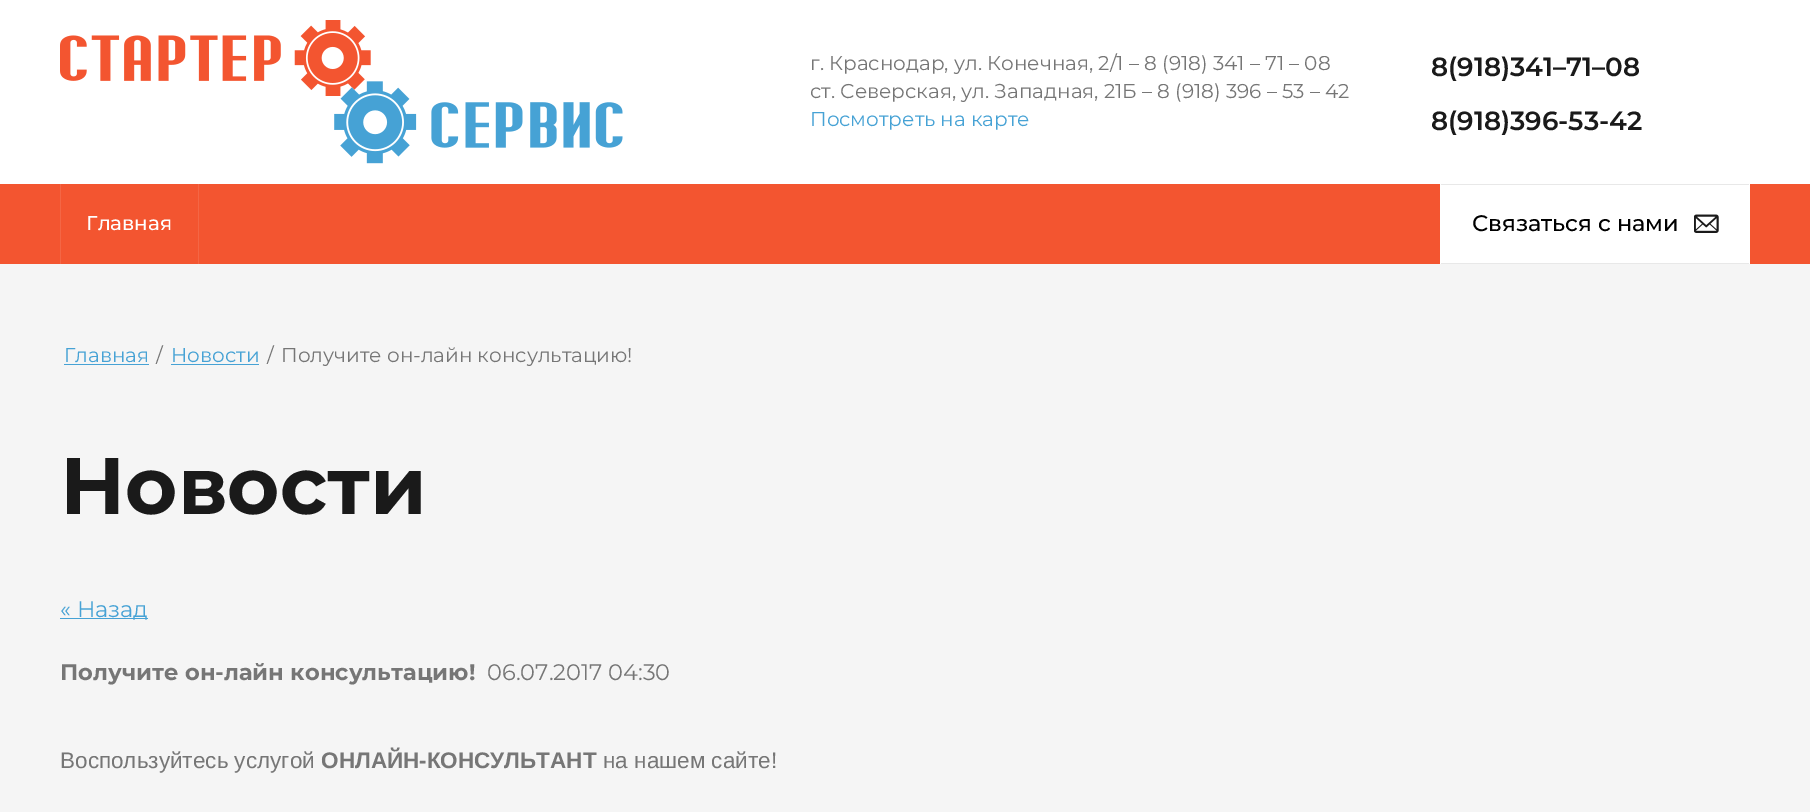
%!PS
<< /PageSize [1810 812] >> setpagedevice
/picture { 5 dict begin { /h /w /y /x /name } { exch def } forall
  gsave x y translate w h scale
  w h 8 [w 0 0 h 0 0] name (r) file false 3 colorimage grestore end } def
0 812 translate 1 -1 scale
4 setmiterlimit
0.961 setgray
0 0 1810 812 rectfill
1 setgray
0 0 1810 184 rectfill
(img1.rgb) 60 20 563 144 picture
/Montserrat-Regular [20 0 0 -20 0 0] selectfont
0.463 setgray
810 70 moveto (г. Краснодар, ул. Конечная, 2/1 – 8 \(918\) 341 – 71 – 08) show
810 98 moveto (ст. Северская, ул. Западная, 21Б – 8 \(918\) 396 – 53 – 42) show
0.275 0.635 0.835 setrgbcolor
810 126 moveto (Посмотреть на карте) show
/Montserrat-SemiBold [26.25 0 0 -26.25 0 0] selectfont
0.102 setgray
1431 76 moveto (8\(918\)341–71–08) show
1431 130 moveto (8\(918\)396-53-42) show
0.953 0.333 0.188 setrgbcolor
0 184 1810 80 rectfill
0.957 0.4 0.271 setrgbcolor
60 184 1 80 rectfill
198 184 1 80 rectfill
/Montserrat-Medium [20 0 0 -20 0 0] selectfont
1 0.996 0.996 setrgbcolor
86 230 moveto (Главная) show
1 setgray
1440 184 310 80 rectfill
0.91 setgray
1441 184 308 1 rectfill
1441 263 308 1 rectfill
/Montserrat-Medium [22.5 0 0 -22.5 0 0] selectfont
0 setgray
1472 231 moveto (Связаться с нами) show
(img2.rgb) 1694 214 25 19 picture
/Montserrat-Regular [20 0 0 -20 0 0] selectfont
0.275 0.635 0.835 setrgbcolor
64 362 moveto (Главная) show
64 364 85 1 rectfill
0.463 setgray
156 362 moveto (/) show
0.275 0.635 0.835 setrgbcolor
171 362 moveto (Новости) show
171 364 88 1 rectfill
0.463 setgray
267 362 moveto (/) show
281 362 moveto (Получите он-лайн консультацию!) show
/Montserrat-Bold [80 0 0 -80 0 0] selectfont
0.102 setgray
60 514 moveto (Новости) show
0.275 0.635 0.835 setrgbcolor
60 618 88 1 rectfill
/Montserrat-Regular [22.5 0 0 -22.5 0 0] selectfont
60 617 moveto (« Назад) show
/Montserrat-Bold [22.5 0 0 -22.5 0 0] selectfont
0.463 setgray
60 680 moveto (Получите он-лайн консультацию!) show
/Montserrat-Regular [22.5 0 0 -22.5 0 0] selectfont
487 680 moveto (06.07.2017 04:30) show
/LiberationSans-Regular [22.5 0 0 -22.5 0 0] selectfont
60 768 moveto (Воспользуйтесь услугой) show
/LiberationSans-Bold [22.5 0 0 -22.5 0 0] selectfont
321 768 moveto (ОНЛАЙН-КОНСУЛЬТАНТ) show
/LiberationSans-Regular [22.5 0 0 -22.5 0 0] selectfont
603 768 moveto (на нашем сайте!) show
showpage
